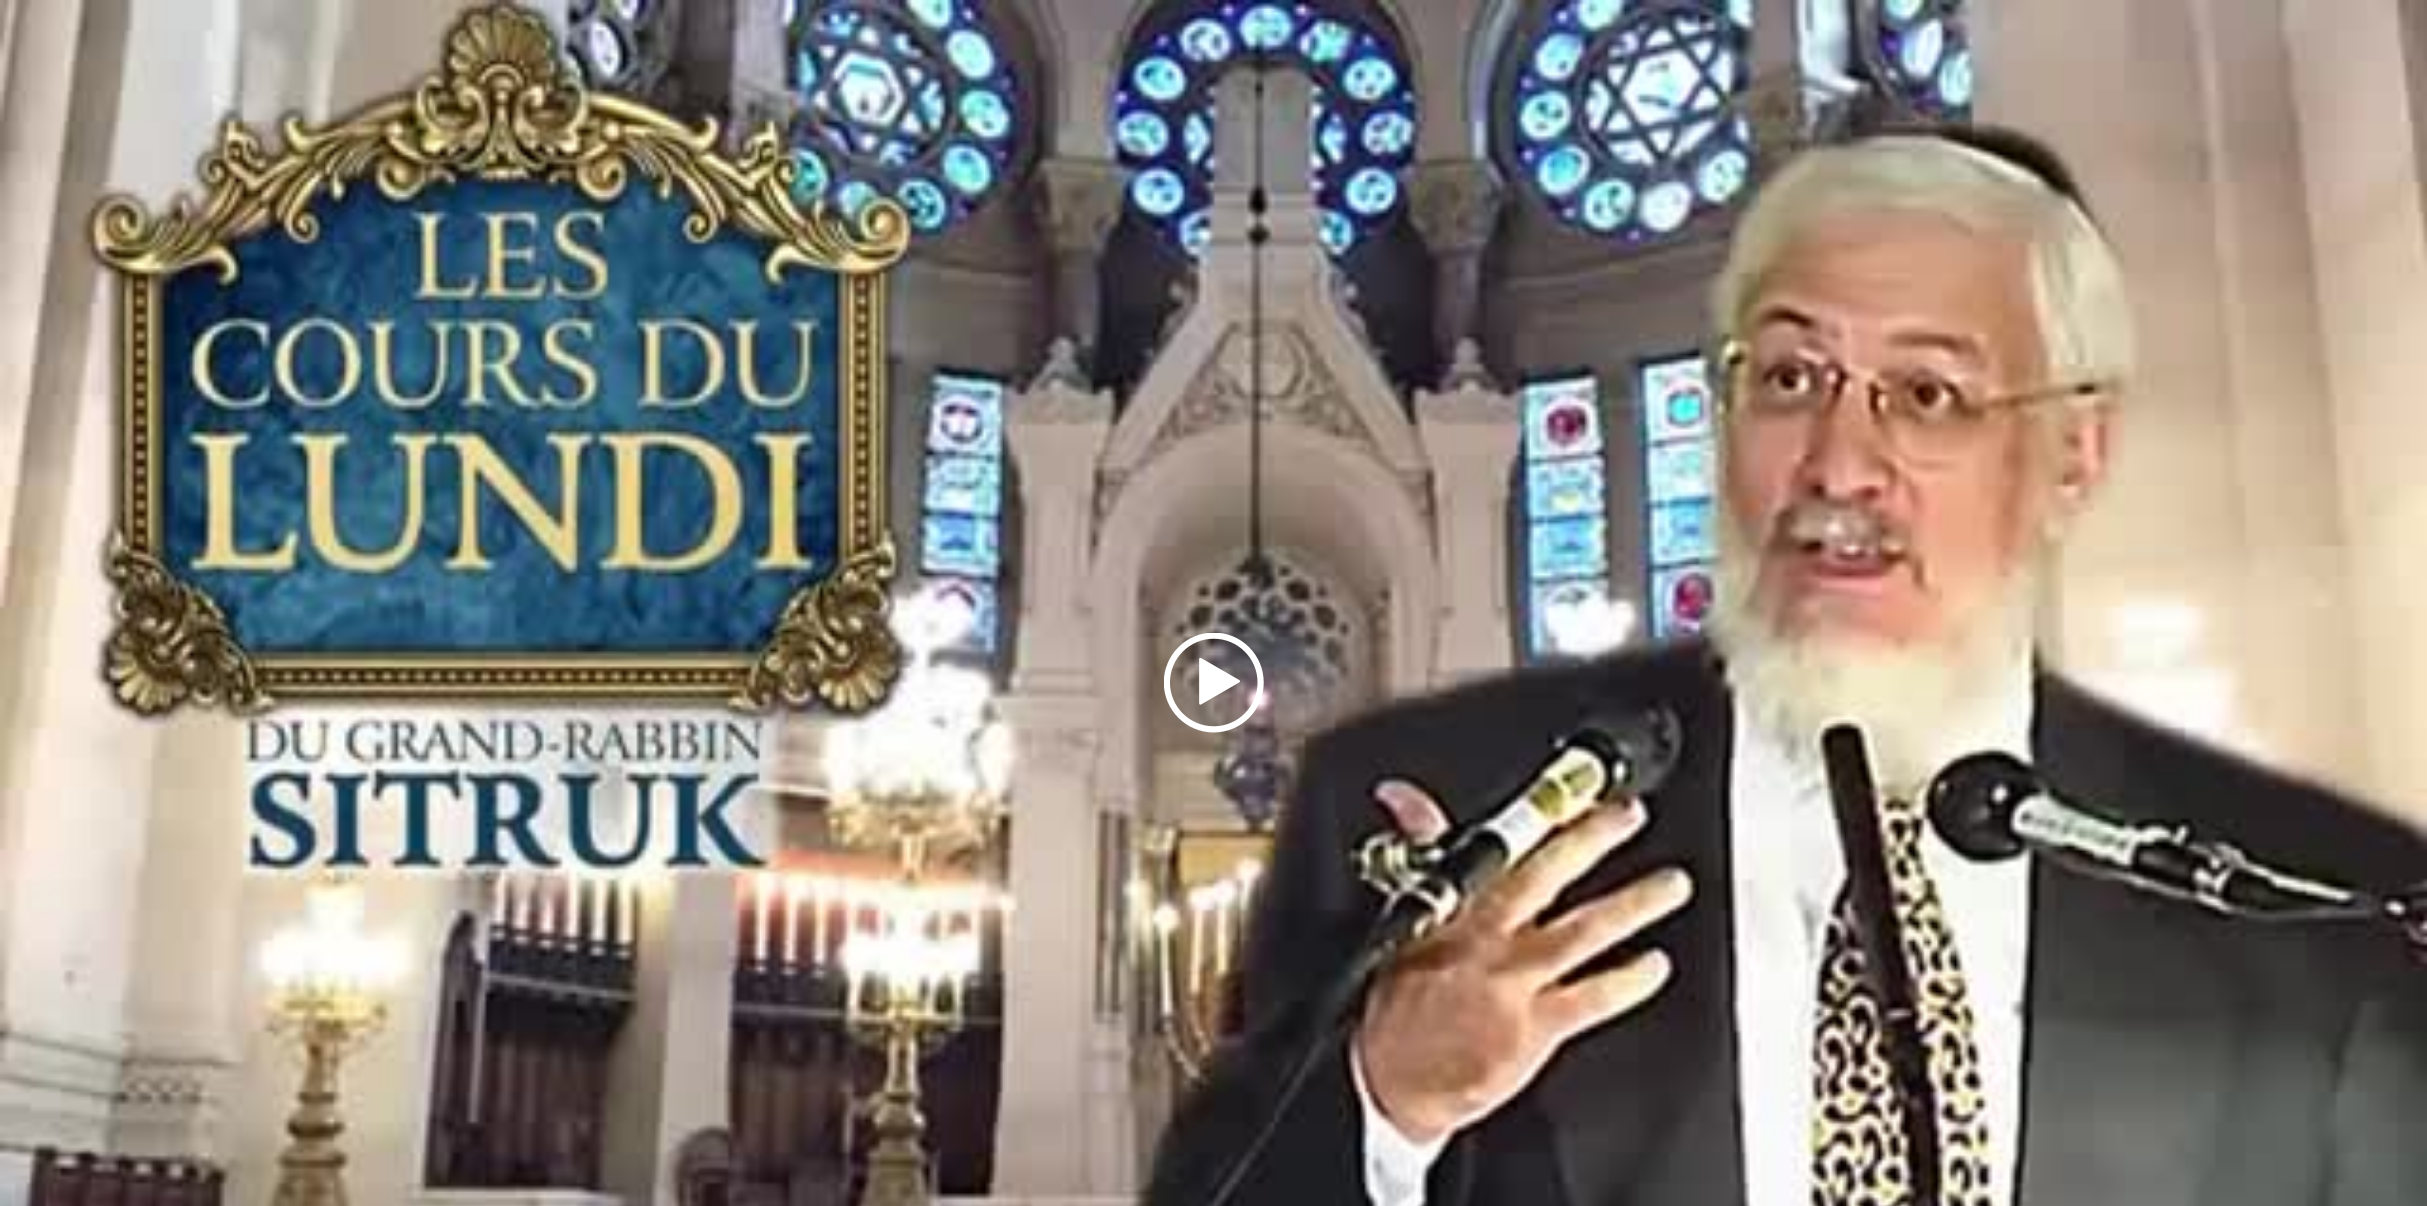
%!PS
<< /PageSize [2427 1206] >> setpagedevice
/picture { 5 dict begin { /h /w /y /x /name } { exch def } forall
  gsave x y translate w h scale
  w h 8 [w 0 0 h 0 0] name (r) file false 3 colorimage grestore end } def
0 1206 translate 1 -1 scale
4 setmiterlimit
1 setgray
0 0 2427 1206 rectfill
(img1.rgb) 0 0 2427 1206 picture
(img2.rgb) 1164 633 100 100 picture
showpage
